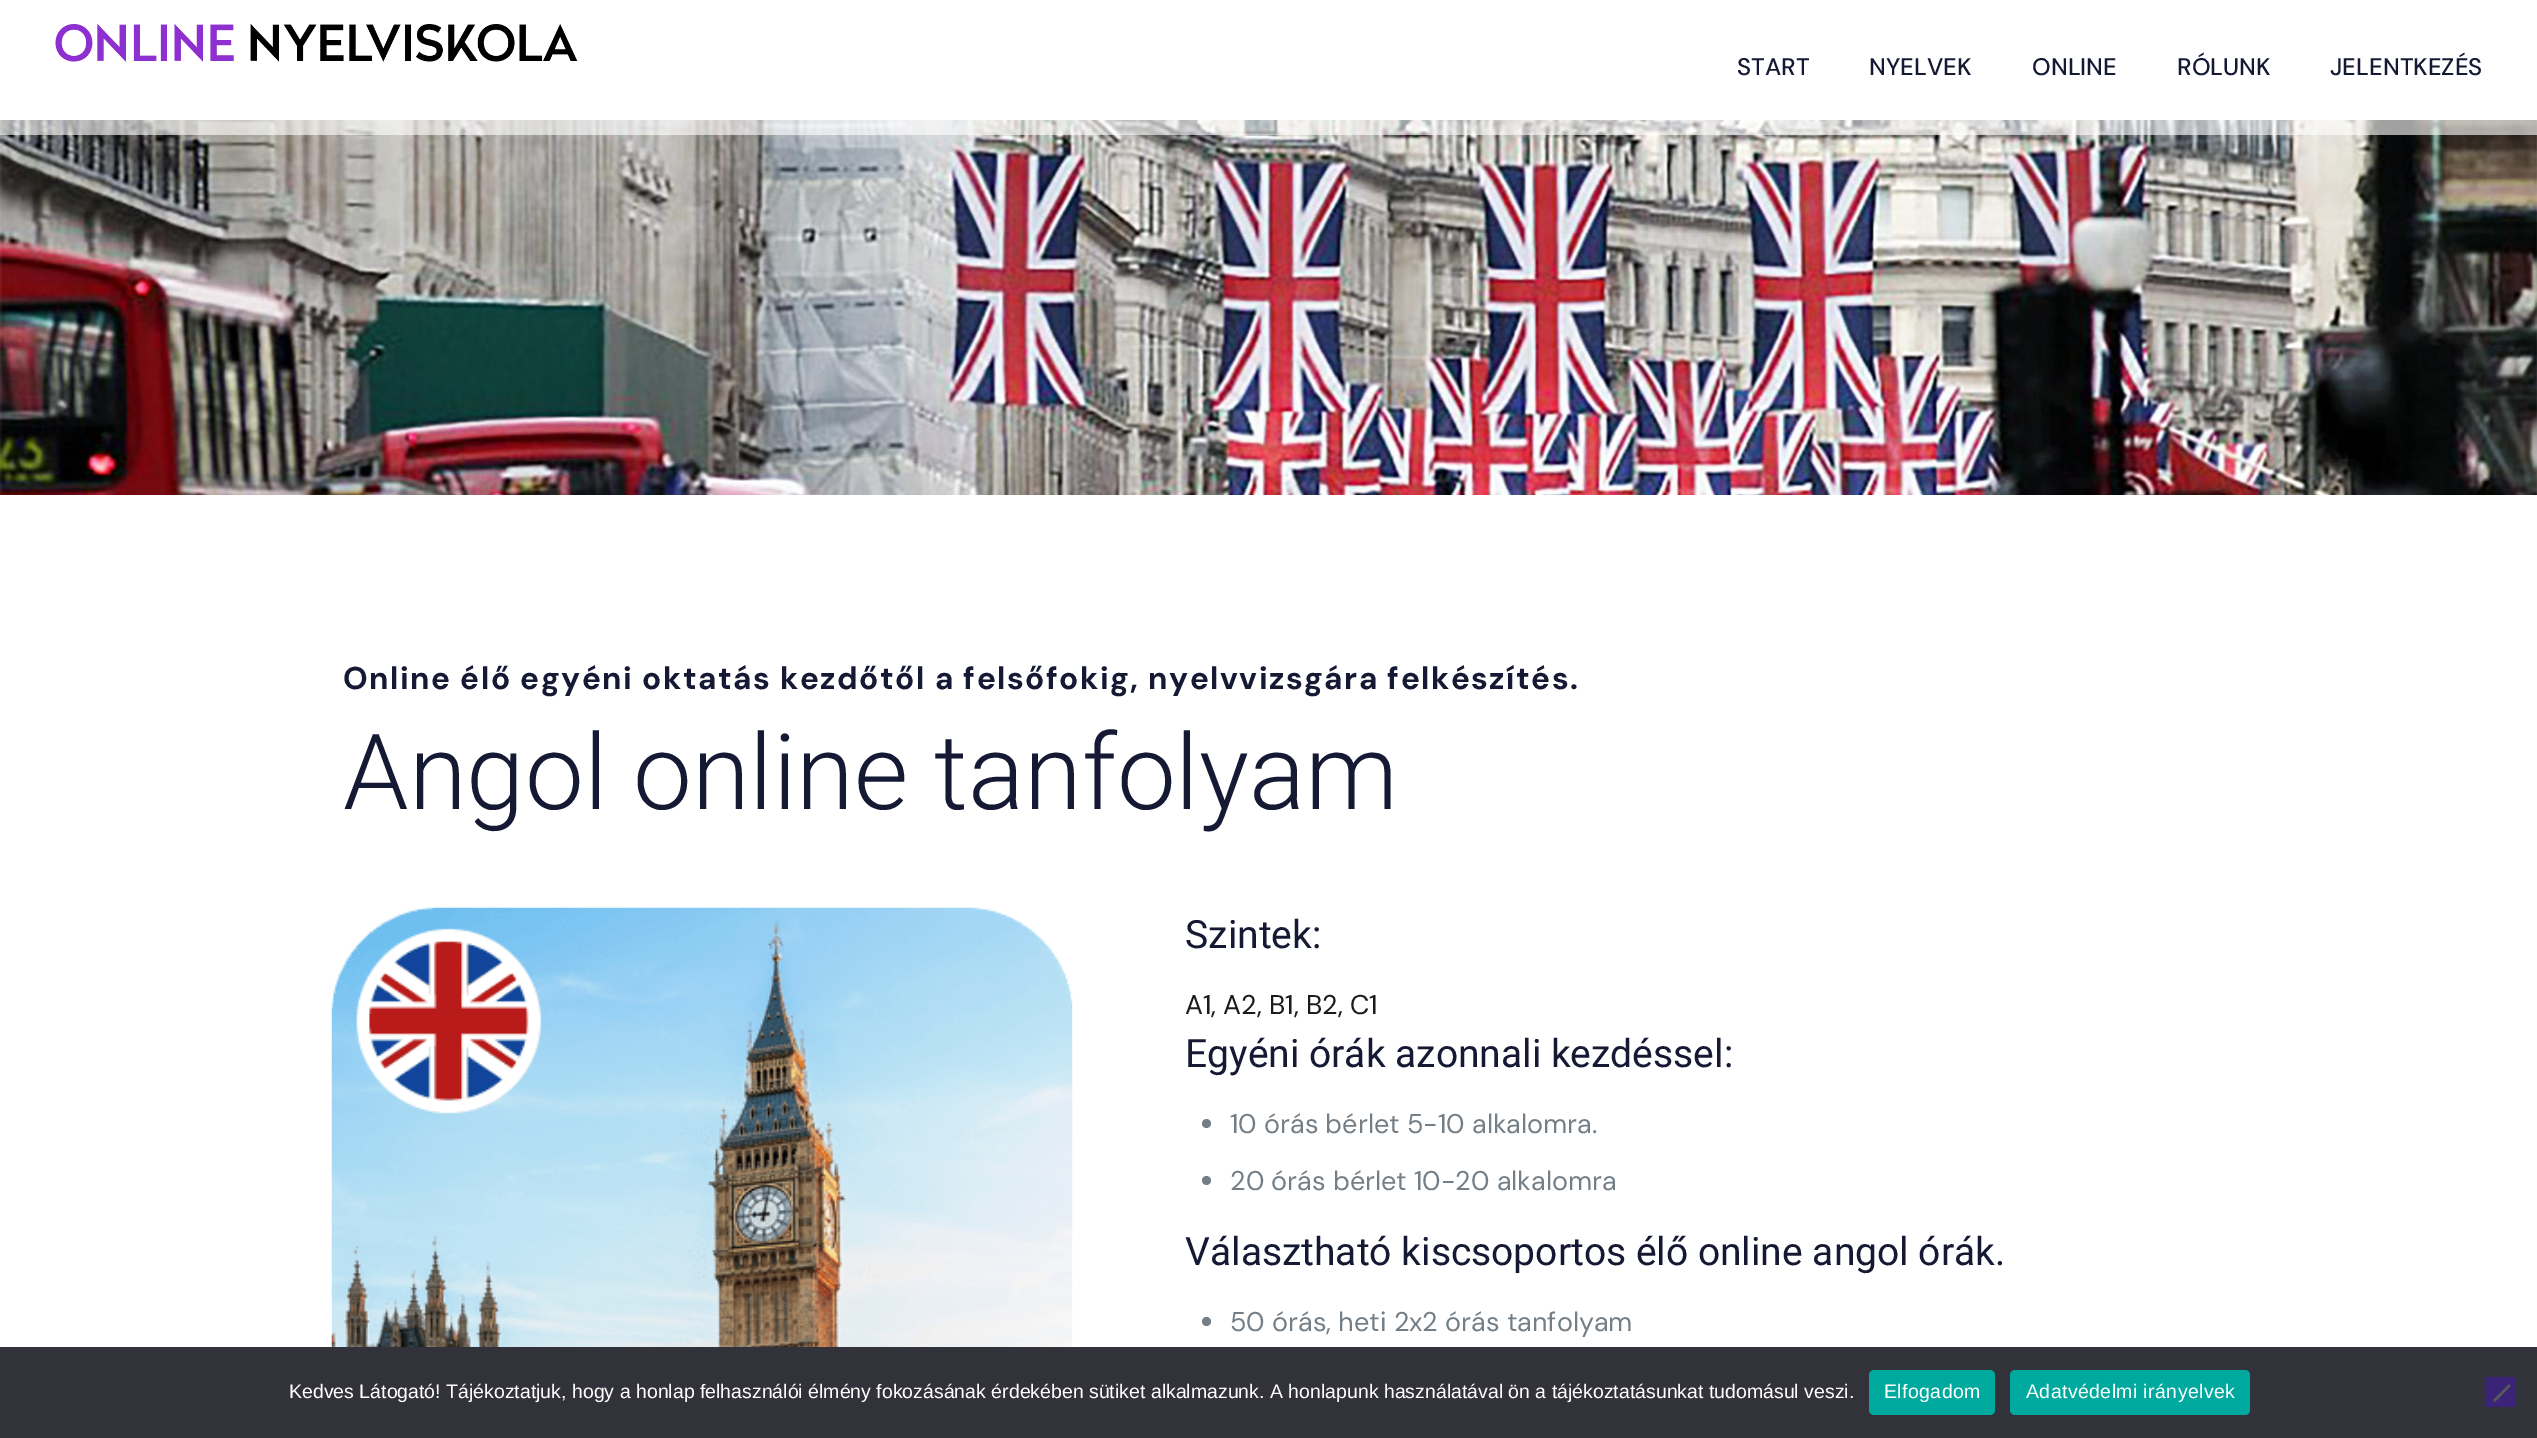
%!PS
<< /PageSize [2537 1438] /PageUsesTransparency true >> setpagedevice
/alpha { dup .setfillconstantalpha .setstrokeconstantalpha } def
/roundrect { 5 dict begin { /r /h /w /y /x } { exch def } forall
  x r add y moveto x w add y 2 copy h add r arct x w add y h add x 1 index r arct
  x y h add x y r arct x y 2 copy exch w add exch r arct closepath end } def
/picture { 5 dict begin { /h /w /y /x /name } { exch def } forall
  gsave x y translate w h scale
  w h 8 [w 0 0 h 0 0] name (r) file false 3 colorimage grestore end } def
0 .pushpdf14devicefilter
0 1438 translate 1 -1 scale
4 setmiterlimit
1 setgray
0 0 2537 1438 rectfill
(img2.rgb) 0 120 2537 375 picture
0.62 alpha
0 120 2537 15 rectfill
1 alpha
(img1.rgb) 55 24 523 38 picture
/DMSans-Medium [24 0 0 -24 0 0] selectfont
0.082 0.098 0.2 setrgbcolor
1737 75 moveto (START) show
1869 75 moveto (NYELVEK) show
2032 75 moveto (ONLINE) show
2177 75 moveto (RÓLUNK) show
2330 75 moveto (JELENTKEZÉS) show
/DMSans-Bold [31.5 0 0 -31.5 0 0] selectfont
343 689 moveto 1.5 0 (Online élő egyéni oktatás kezdőtől a felsőfokig, nyelvvizsgára felkészítés.) ashow
/Roboto-Light [105 0 0 -105 0 0] selectfont
343 809 moveto (Angol online tanfolyam) show
(img3.rgb) 331 907 742 440 picture
/Roboto-Regular [39 0 0 -39 0 0] selectfont
1185 948 moveto (Szintek:) show
/DMSans-Regular [27 0 0 -27 0 0] selectfont
0.106 setgray
1185 1014 moveto (A1, A2, B1, B2, C1) show
/Roboto-Regular [39 0 0 -39 0 0] selectfont
0.082 0.098 0.2 setrgbcolor
1185 1067 moveto (Egyéni órák azonnali kezdéssel:) show
0.451 0.494 0.525 setrgbcolor
newpath 1206.5 1123.5 4.5 0 360 arc closepath fill
/DMSans-Regular [27 0 0 -27 0 0] selectfont
1230 1133 moveto (10 órás bérlet 5-10 alkalomra.) show
newpath 1206.5 1180.5 4.5 0 360 arc closepath fill
1230 1190 moveto (20 órás bérlet 10-20 alkalomra) show
/Roboto-Regular [39 0 0 -39 0 0] selectfont
0.082 0.098 0.2 setrgbcolor
1185 1265 moveto (Választható kiscsoportos élő online angol órák.) show
0.451 0.494 0.525 setrgbcolor
newpath 1206.5 1321.5 4.5 0 360 arc closepath fill
/DMSans-Regular [27 0 0 -27 0 0] selectfont
1230 1331 moveto (50 órás, heti 2x2 órás tanfolyam) show
0.196 0.196 0.227 setrgbcolor
0 1347 2537 91 rectfill
/LiberationSans-Regular [19.5 0 0 -19.5 0 0] selectfont
1 setgray
289 1398 moveto (Kedves Látogató! Tájékoztatjuk, hogy a honlap felhasználói élmény fokozásának érdekében sütiket alkalmazunk. A honlapunk használatával ön a tájékoztatásunkat tudomásul veszi.) show
0 0.663 0.616 setrgbcolor
1869 1370 126 45 5 roundrect fill
1 setgray
1884 1398 moveto 0.4 0 (Elfogadom) ashow
0 0.663 0.616 setrgbcolor
2010 1370 240 45 5 roundrect fill
1 setgray
2026 1398 moveto 0.4 0 (Adatvédelmi irányelvek) ashow
0.231 0.137 0.478 setrgbcolor
2486 1377 30 30 rectfill
0.349 0.349 0.365 setrgbcolor
newpath 2509 1384 moveto 2511 1386 lineto 2495 1402 lineto 2493 1400 lineto closepath fill
0.05 alpha
0.196 0.196 0.227 setrgbcolor
newpath 2479 1392 moveto 2500 1371 lineto 2522 1392 lineto 2500 1414 lineto closepath fill
.poppdf14devicefilter showpage
